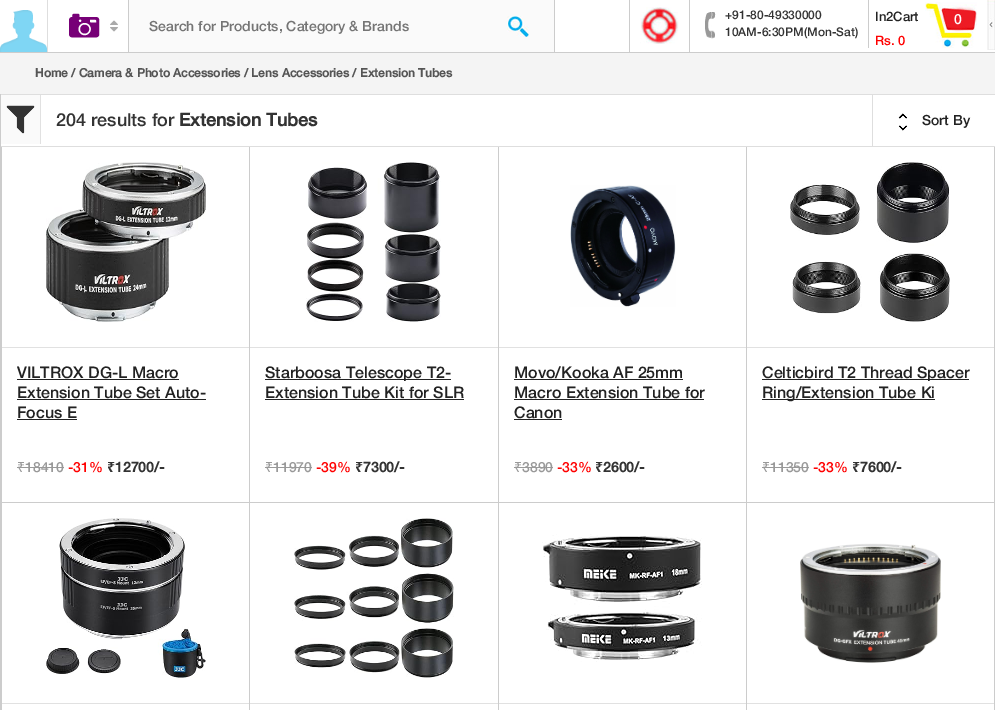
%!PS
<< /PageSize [995 710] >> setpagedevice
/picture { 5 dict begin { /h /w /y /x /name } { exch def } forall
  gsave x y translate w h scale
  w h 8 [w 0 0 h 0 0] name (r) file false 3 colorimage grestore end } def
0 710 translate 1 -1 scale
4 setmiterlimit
1 setgray
0 0 995 710 rectfill
0.8 setgray
0 52 995 1 rectfill
0.871 setgray
47 0 1 52 rectfill
(img1.rgb) 0 10 47 42 picture
(img2.rgb) 69 13 31 25 picture
(img3.rgb) 110 20 8 12 picture
0.8 setgray
554 0 1 52 rectfill
128 0 1 52 rectfill
0.98 setgray
129 0 425 52 rectfill
/HelveticaNeue-Medium [14 0 0 -14 0 0] selectfont
0.459 setgray
149 31 moveto (Search for Products, Category & Brands) show
(img4.rgb) 507 16 22 21 picture
0.8 setgray
689 0 1 52 rectfill
629 0 1 52 rectfill
(img5.rgb) 640 7 39 37 picture
868 0 1 48 rectfill
(img6.rgb) 705 12 11 27 picture
/HelveticaNeue-Medium [12 0 0 -12 0 0] selectfont
0.2 setgray
725 19 moveto (+91-80-49330000) show
725 36 moveto (10AM-6:30PM\(Mon-Sat\)) show
/HelveticaNeue-Medium [13 0 0 -13 0 0] selectfont
0.133 setgray
875 21 moveto (In2Cart) show
1 0 0 setrgbcolor
875 45 moveto (Rs. 0) show
(img7.rgb) 925 2 52 46 picture
/HelveticaNeue-Medium [14 0 0 -14 0 0] selectfont
1 setgray
954 24 moveto (0) show
(img8.rgb) 987 0 8 50 picture
0.957 setgray
0 53 995 41 rectfill
/HelveticaNeue-Bold [12 0 0 -12 0 0] selectfont
0.333 setgray
35 77 moveto (Home / Camera & Photo Accessories / Lens Accessories / Extension Tubes) show
0.8 setgray
0 94 1 616 rectfill
0.871 setgray
1 94 994 1 rectfill
1 146 994 1 rectfill
0.98 setgray
1 95 39 49 rectfill
0.882 setgray
40 95 1 49 rectfill
(img9.rgb) 6 105 29 29 picture
/HelveticaNeue-Medium [18 0 0 -18 0 0] selectfont
0.2 setgray
56 126 moveto (204 results for) show
/HelveticaNeue-Bold [18 0 0 -18 0 0] selectfont
179 126 moveto (Extension Tubes) show
0.871 setgray
872 95 1 51 rectfill
(img10.rgb) 898 113 10 18 picture
/HelveticaNeue-Medium [14 0 0 -14 0 0] selectfont
0.133 setgray
922 125 moveto (Sort By) show
0.8 setgray
1 147 1 563 rectfill
249 147 1 563 rectfill
2 502 248 1 rectfill
(img11.rgb) 46 162 160 160 picture
0.882 setgray
2 347 247 1 rectfill
/HelveticaNeue-Medium [16 0 0 -16 0 0] selectfont
0.133 setgray
17 378 moveto (VILTROX DG-L Macro) show
17 379 162 1 rectfill
17 398 moveto (Extension Tube Set Auto-) show
17 399 189 1 rectfill
17 418 moveto (Focus E) show
17 419 60 1 rectfill
/NotoSans-Regular [14 0 0 -14 0 0] selectfont
0.6 setgray
17 472 moveto (₹) show
/HelveticaNeue-Medium [14 0 0 -14 0 0] selectfont
25 472 moveto (18410) show
17 467 47 1 rectfill
1 0 0 setrgbcolor
68 472 moveto (-31%) show
/NotoSans-Bold [14 0 0 -14 0 0] selectfont
0.2 setgray
107 472 moveto (₹) show
/HelveticaNeue-Bold [14 0 0 -14 0 0] selectfont
115 472 moveto (12700/-) show
0.8 setgray
498 147 1 563 rectfill
250 502 249 1 rectfill
(img12.rgb) 306 162 135 160 picture
0.882 setgray
250 347 248 1 rectfill
0.133 setgray
265 379 186 1 rectfill
/HelveticaNeue-Medium [16 0 0 -16 0 0] selectfont
265 378 moveto (Starboosa Telescope T2-) show
265 398 moveto (Extension Tube Kit for SLR) show
265 399 199 1 rectfill
/NotoSans-Regular [14 0 0 -14 0 0] selectfont
0.6 setgray
265 472 moveto (₹) show
/HelveticaNeue-Medium [14 0 0 -14 0 0] selectfont
273 472 moveto (11970) show
265 467 47 1 rectfill
1 0 0 setrgbcolor
316 472 moveto (-39%) show
/NotoSans-Bold [14 0 0 -14 0 0] selectfont
0.2 setgray
355 472 moveto (₹) show
/HelveticaNeue-Bold [14 0 0 -14 0 0] selectfont
363 472 moveto (7300/-) show
0.8 setgray
746 147 1 563 rectfill
499 502 248 1 rectfill
(img13.rgb) 570 185 106 122 picture
0.882 setgray
499 347 247 1 rectfill
/HelveticaNeue-Medium [16 0 0 -16 0 0] selectfont
0.133 setgray
514 378 moveto (Movo/Kooka AF 25mm) show
514 379 169 1 rectfill
514 398 moveto (Macro Extension Tube for) show
514 399 190 1 rectfill
514 418 moveto (Canon) show
514 419 48 1 rectfill
/NotoSans-Regular [14 0 0 -14 0 0] selectfont
0.6 setgray
514 472 moveto (₹) show
/HelveticaNeue-Medium [14 0 0 -14 0 0] selectfont
522 472 moveto (3890) show
514 467 39 1 rectfill
1 0 0 setrgbcolor
557 472 moveto (-33%) show
/NotoSans-Bold [14 0 0 -14 0 0] selectfont
0.2 setgray
595 472 moveto (₹) show
/HelveticaNeue-Bold [14 0 0 -14 0 0] selectfont
603 472 moveto (2600/-) show
0.8 setgray
994 147 1 563 rectfill
747 502 248 1 rectfill
(img14.rgb) 790 162 160 160 picture
0.882 setgray
747 347 247 1 rectfill
0.133 setgray
762 379 207 1 rectfill
/HelveticaNeue-Medium [16 0 0 -16 0 0] selectfont
762 378 moveto (Celticbird T2 Thread Spacer) show
762 399 173 1 rectfill
762 398 moveto (Ring/Extension Tube Ki) show
/NotoSans-Regular [14 0 0 -14 0 0] selectfont
0.6 setgray
762 472 moveto (₹) show
/HelveticaNeue-Medium [14 0 0 -14 0 0] selectfont
770 472 moveto (11350) show
762 467 47 1 rectfill
1 0 0 setrgbcolor
813 472 moveto (-33%) show
/NotoSans-Bold [14 0 0 -14 0 0] selectfont
0.2 setgray
852 472 moveto (₹) show
/HelveticaNeue-Bold [14 0 0 -14 0 0] selectfont
860 472 moveto (7600/-) show
(img15.rgb) 46 518 160 160 picture
0.882 setgray
2 703 247 1 rectfill
(img16.rgb) 294 518 160 160 picture
250 703 248 1 rectfill
(img17.rgb) 542 534 160 128 picture
499 703 247 1 rectfill
(img18.rgb) 800 543 141 120 picture
747 703 247 1 rectfill
showpage
